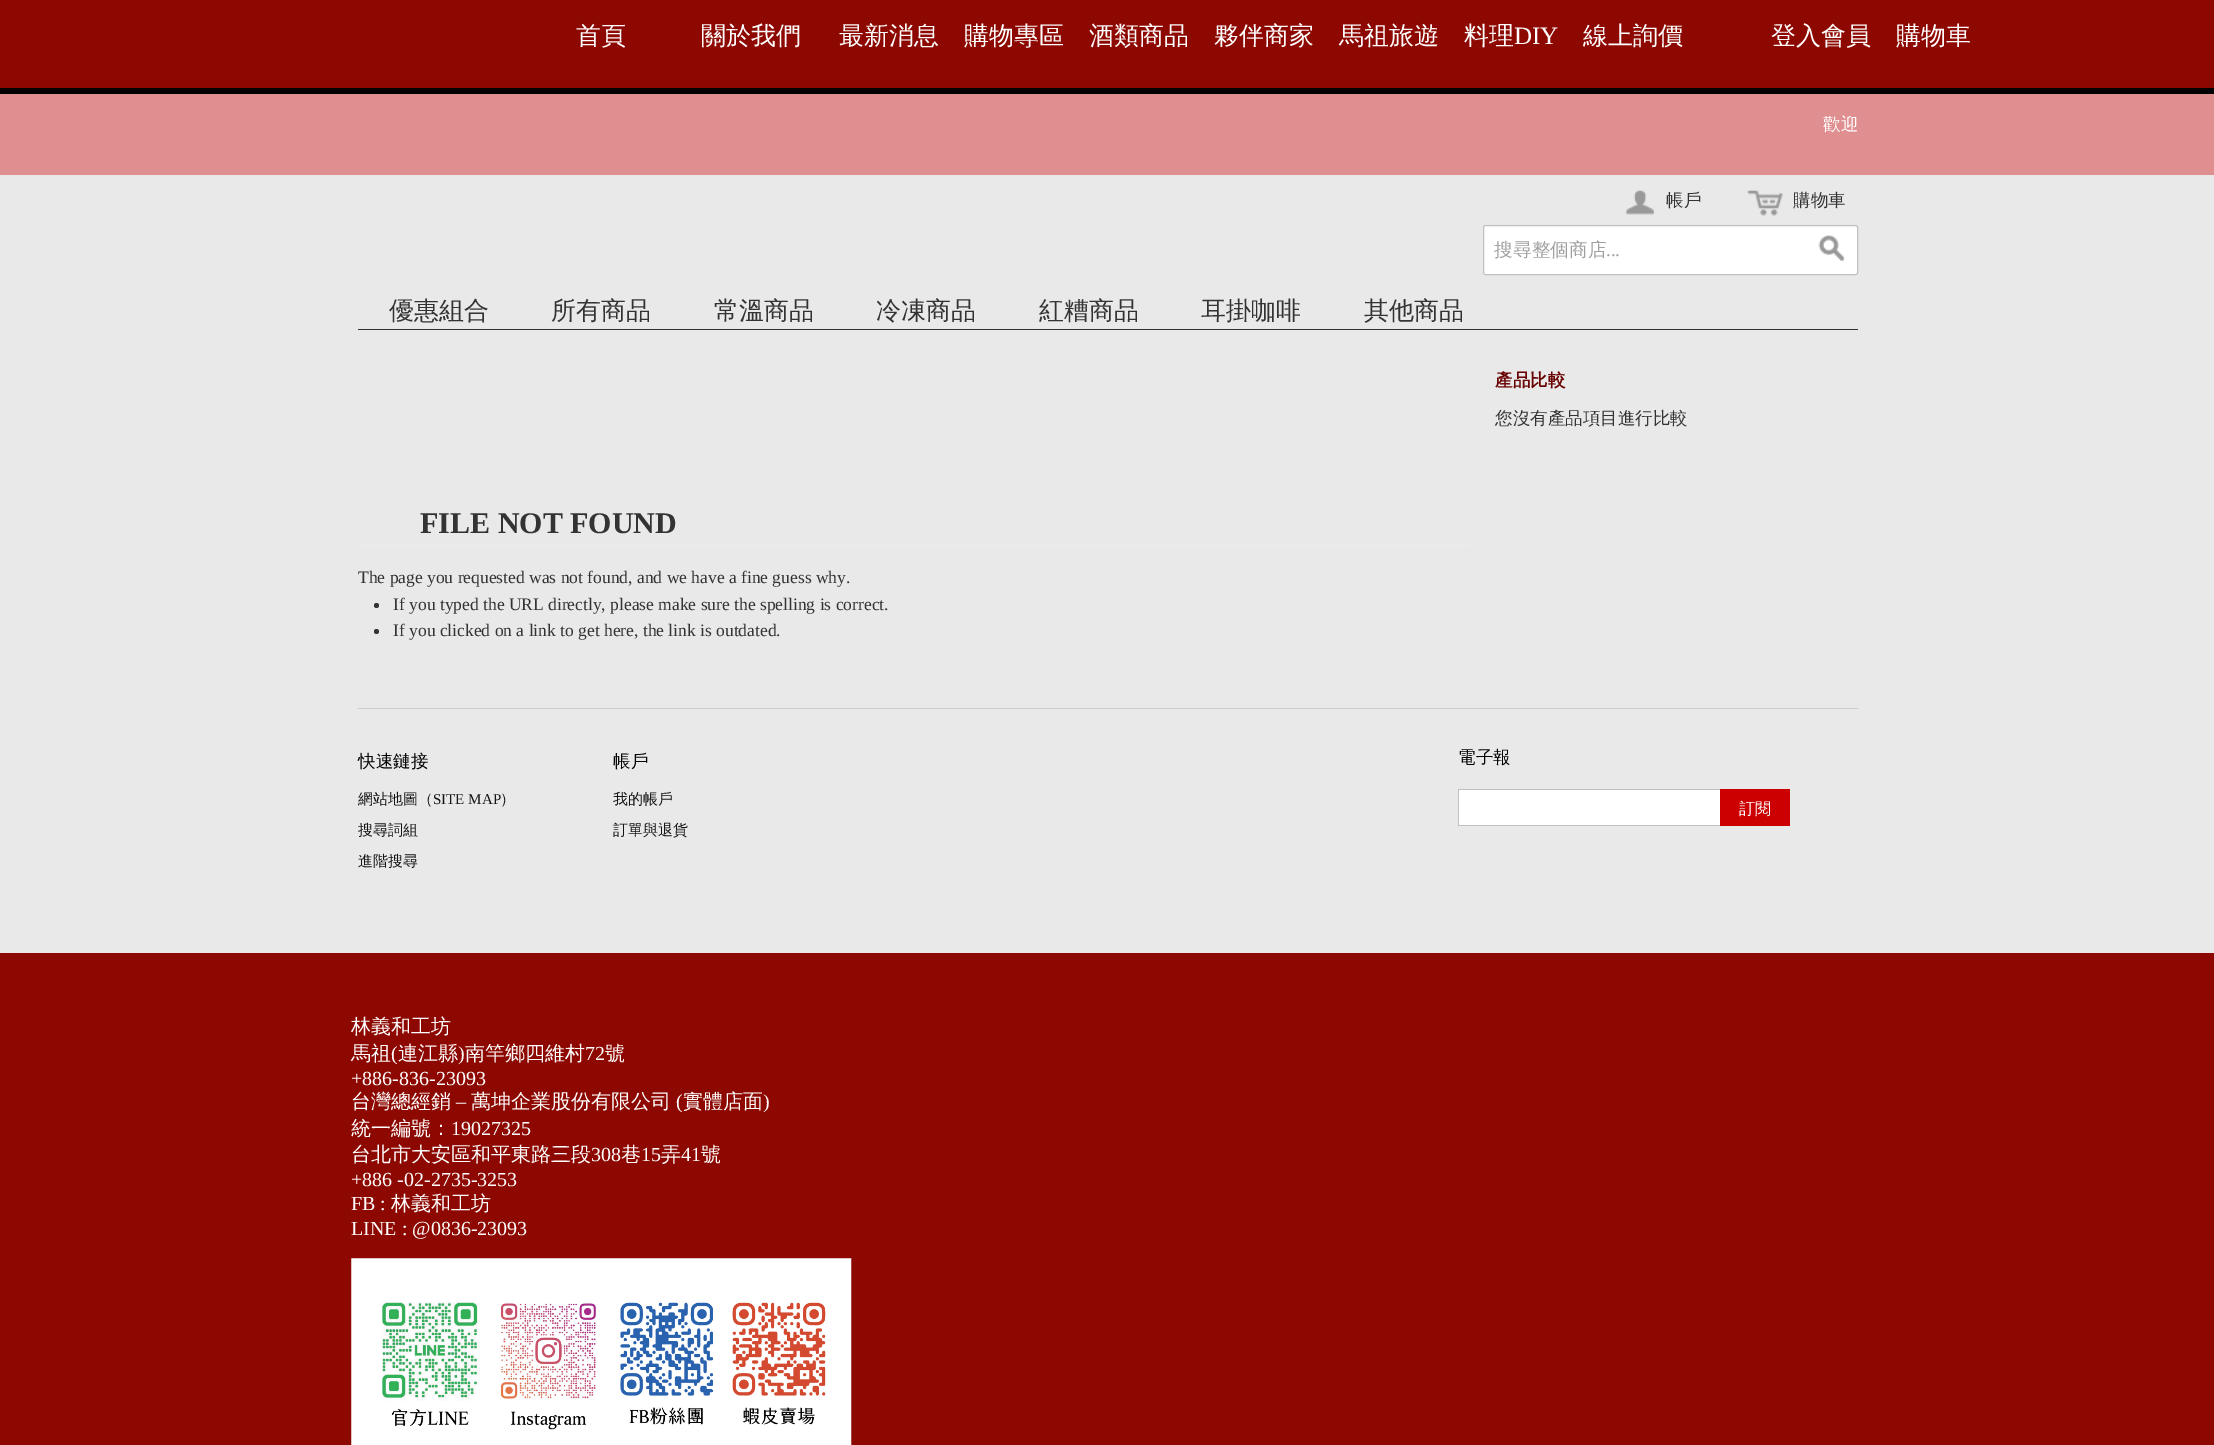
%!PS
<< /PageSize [2214 1445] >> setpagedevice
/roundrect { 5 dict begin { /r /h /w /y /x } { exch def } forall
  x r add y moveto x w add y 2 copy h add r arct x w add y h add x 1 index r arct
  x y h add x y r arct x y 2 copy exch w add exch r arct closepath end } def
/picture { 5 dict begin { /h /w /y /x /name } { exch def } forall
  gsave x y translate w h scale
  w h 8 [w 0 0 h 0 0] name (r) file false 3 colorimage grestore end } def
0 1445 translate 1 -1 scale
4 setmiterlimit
0 setgray
0 0 2214 1445 rectfill
0.553 0.031 0.004 setrgbcolor
0 0 2214 88 rectfill
/WenQuanYiZenHei-Medium [25 0 0 -25 0 0] selectfont
1 setgray
576 44 moveto (首頁) show
701 44 moveto (關於我們) show
839 44 moveto (最新消息) show
964 44 moveto (購物專區) show
1089 44 moveto (酒類商品) show
1214 44 moveto (夥伴商家) show
1339 44 moveto (馬祖旅遊) show
1464 44 moveto (料理) show
/LiberationSerif-Regular [25 0 0 -25 0 0] selectfont
1514 44 moveto (DIY) show
/WenQuanYiZenHei-Medium [25 0 0 -25 0 0] selectfont
1583 44 moveto (線上詢價) show
1771 44 moveto (登入會員) show
1896 44 moveto (購物車) show
0.914 setgray
0 175 2214 778 rectfill
0.875 0.561 0.561 setrgbcolor
0 94 2214 81 rectfill
/WenQuanYiZenHei-Medium [17.5 0 0 -17.5 0 0] selectfont
1 setgray
1823 130 moveto (歡迎) show
(img1.rgb) 1626 190 29 25 picture
0.2 setgray
1666 206 moveto (帳戶) show
(img2.rgb) 1747 190 36 26 picture
1793 206 moveto (購物車) show
1 setgray
1483.5 225.5 374 49 2 roundrect gsave fill grestore
0.753 setgray
stroke
/WenQuanYiZenHei-Medium [18.75 0 0 -18.75 0 0] selectfont
0.627 setgray
1494 256 moveto (搜尋整個商店) show
/LiberationSerif-Regular [18.75 0 0 -18.75 0 0] selectfont
1606 256 moveto (...) show
(img3.rgb) 1818 235 27 26 picture
0.2 setgray
358 329 1500 1 rectfill
/WenQuanYiZenHei-Medium [25 0 0 -25 0 0] selectfont
389 319 moveto (優惠組合) show
551 319 moveto (所有商品) show
714 319 moveto (常溫商品) show
876 319 moveto (冷凍商品) show
1039 319 moveto (紅糟商品) show
1201 319 moveto (耳掛咖啡) show
1364 319 moveto (其他商品) show
/WenQuanYiZenHei-Bold [17.5 0 0 -17.5 0 0] selectfont
0.416 0.012 0.012 setrgbcolor
1495 386 moveto (產品比較) show
/WenQuanYiZenHei-Medium [17.5 0 0 -17.5 0 0] selectfont
0.2 setgray
1495 424 moveto (您沒有產品項目進行比較) show
0.929 setgray
358 545 1112 1 rectfill
/LiberationSerif-Bold [30 0 0 -30 0 0] selectfont
0.2 setgray
420 533 moveto (FILE NOT FOUND) show
/LiberationSerif-Regular [17.5 0 0 -17.5 0 0] selectfont
358 583 moveto (The page you requested was not found, and we have a fine guess why.) show
newpath 376.5 605.5 2.5 0 360 arc closepath fill
393 610 moveto (If you typed the URL directly, please make sure the spelling is correct.) show
newpath 376.5 631.5 2.5 0 360 arc closepath fill
393 636 moveto (If you clicked on a link to get here, the link is outdated.) show
0.8 setgray
358 708 1500 1 rectfill
/WenQuanYiZenHei-Medium [17.5 0 0 -17.5 0 0] selectfont
0.012 setgray
358 767 moveto (快速鏈接) show
/WenQuanYiZenHei-Medium [15 0 0 -15 0 0] selectfont
0.082 0.078 0.078 setrgbcolor
358 804 moveto (網站地圖（) show
/LiberationSerif-Regular [15 0 0 -15 0 0] selectfont
433 804 moveto (SITE MAP) show
/WenQuanYiZenHei-Medium [15 0 0 -15 0 0] selectfont
500 804 moveto (）) show
358 835 moveto (搜尋詞組) show
358 866 moveto (進階搜尋) show
/WenQuanYiZenHei-Medium [17.5 0 0 -17.5 0 0] selectfont
0.012 setgray
613 767 moveto (帳戶) show
/WenQuanYiZenHei-Medium [15 0 0 -15 0 0] selectfont
0.082 0.078 0.078 setrgbcolor
613 804 moveto (我的帳戶) show
613 835 moveto (訂單與退貨) show
/WenQuanYiZenHei-Medium [17.5 0 0 -17.5 0 0] selectfont
0.012 setgray
1458 763 moveto (電子報) show
1 setgray
1459 790 261 35 rectfill
0.753 setgray
1458 789 262 1 rectfill
1458 825 262 1 rectfill
1458 789 1 37 rectfill
0.8 0 0 setrgbcolor
1720 789 70 37 rectfill
/WenQuanYiZenHei-Medium [16 0 0 -16 0 0] selectfont
1 setgray
1739 814 moveto (訂閱) show
0.553 0.031 0.004 setrgbcolor
0 953 2214 492 rectfill
/WenQuanYiZenHei-Medium [20 0 0 -20 0 0] selectfont
1 setgray
351 1033 moveto (林義和工坊) show
351 1060 moveto (馬祖) show
/LiberationSerif-Regular [20 0 0 -20 0 0] selectfont
391 1060 moveto (\() show
/WenQuanYiZenHei-Medium [20 0 0 -20 0 0] selectfont
398 1060 moveto (連江縣) show
/LiberationSerif-Regular [20 0 0 -20 0 0] selectfont
458 1060 moveto (\)) show
/WenQuanYiZenHei-Medium [20 0 0 -20 0 0] selectfont
465 1060 moveto (南竿鄉四維村) show
/LiberationSerif-Regular [20 0 0 -20 0 0] selectfont
585 1060 moveto (72) show
/WenQuanYiZenHei-Medium [20 0 0 -20 0 0] selectfont
605 1060 moveto (號) show
/LiberationSerif-Regular [20 0 0 -20 0 0] selectfont
351 1085 moveto (+886-836-23093) show
/WenQuanYiZenHei-Medium [20 0 0 -20 0 0] selectfont
351 1108 moveto (台灣總經銷) show
/LiberationSerif-Regular [20 0 0 -20 0 0] selectfont
456 1108 moveto (‒) show
/WenQuanYiZenHei-Medium [20 0 0 -20 0 0] selectfont
471 1108 moveto (萬坤企業股份有限公司) show
/LiberationSerif-Regular [20 0 0 -20 0 0] selectfont
676 1108 moveto (\() show
/WenQuanYiZenHei-Medium [20 0 0 -20 0 0] selectfont
683 1108 moveto (實體店面) show
/LiberationSerif-Regular [20 0 0 -20 0 0] selectfont
763 1108 moveto (\)) show
/WenQuanYiZenHei-Medium [20 0 0 -20 0 0] selectfont
351 1135 moveto (統一編號：) show
/LiberationSerif-Regular [20 0 0 -20 0 0] selectfont
451 1135 moveto (19027325) show
/WenQuanYiZenHei-Medium [20 0 0 -20 0 0] selectfont
351 1161 moveto (台北市大安區和平東路三段) show
/LiberationSerif-Regular [20 0 0 -20 0 0] selectfont
591 1161 moveto (308) show
/WenQuanYiZenHei-Medium [20 0 0 -20 0 0] selectfont
621 1161 moveto (巷) show
/LiberationSerif-Regular [20 0 0 -20 0 0] selectfont
641 1161 moveto (15) show
/WenQuanYiZenHei-Medium [20 0 0 -20 0 0] selectfont
661 1161 moveto (弄) show
/LiberationSerif-Regular [20 0 0 -20 0 0] selectfont
681 1161 moveto (41) show
/WenQuanYiZenHei-Medium [20 0 0 -20 0 0] selectfont
701 1161 moveto (號) show
/LiberationSerif-Regular [20 0 0 -20 0 0] selectfont
351 1186 moveto (+886 -02-2735-3253) show
351 1210 moveto (FB :) show
/WenQuanYiZenHei-Medium [20 0 0 -20 0 0] selectfont
391 1210 moveto (林義和工坊) show
/LiberationSerif-Regular [20 0 0 -20 0 0] selectfont
351 1235 moveto (LINE : @0836-23093) show
(img4.rgb) 351 1258 501 187 picture
showpage
